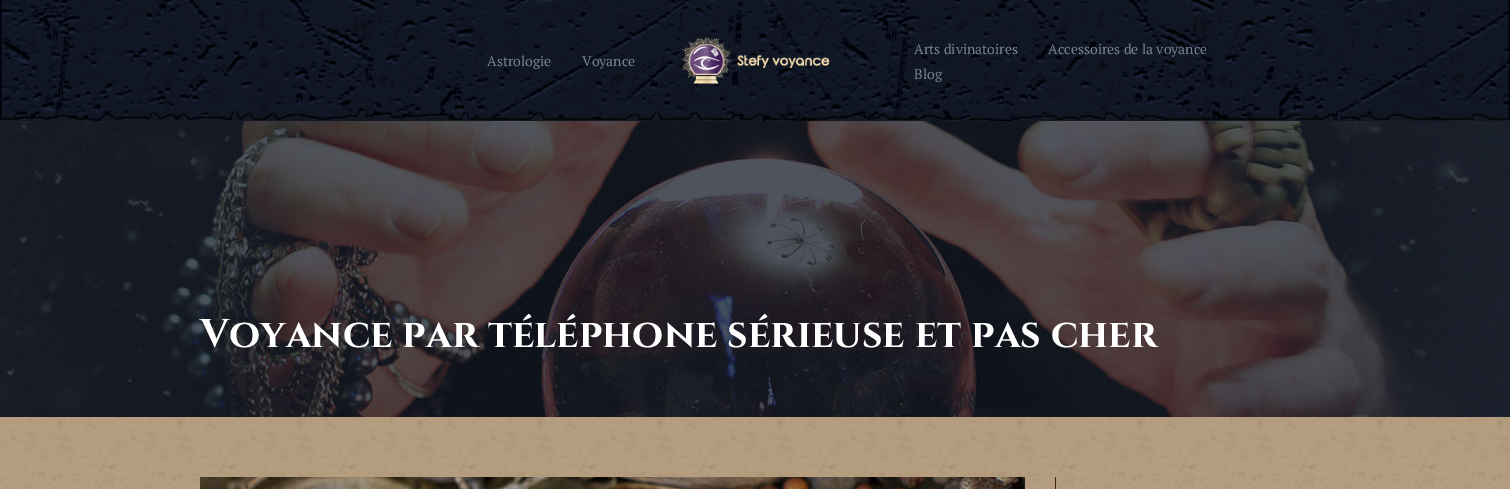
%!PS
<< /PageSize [1510 489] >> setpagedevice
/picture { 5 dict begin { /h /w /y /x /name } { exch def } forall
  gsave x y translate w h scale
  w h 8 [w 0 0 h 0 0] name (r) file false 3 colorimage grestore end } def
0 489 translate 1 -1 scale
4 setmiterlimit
0.071 0.09 0.141 setrgbcolor
0 0 1510 489 rectfill
(img1.rgb) 0 0 1510 121 picture
/PTSerif-Regular [14 0 0 -14 0 0] selectfont
0.467 0.51 0.576 setrgbcolor
487 66 moveto (Astrologie) show
582 66 moveto (Voyance) show
(img2.rgb) 681 37 149 47 picture
914 54 moveto (Arts divinatoires) show
1048 54 moveto (Accessoires de la voyance) show
914 79 moveto (Blog) show
(img3.rgb) 0 417 1510 72 picture
(img4.rgb) 0 121 1510 296 picture
/Cinzel-Bold [40 0 0 -40 0 0] selectfont
1 setgray
200 347 moveto (Voyance par téléphone sérieuse et pas cher) show
(img5.rgb) 200 477 825 12 picture
0.282 0.133 0.063 setrgbcolor
1055 477 1 12 rectfill
showpage
